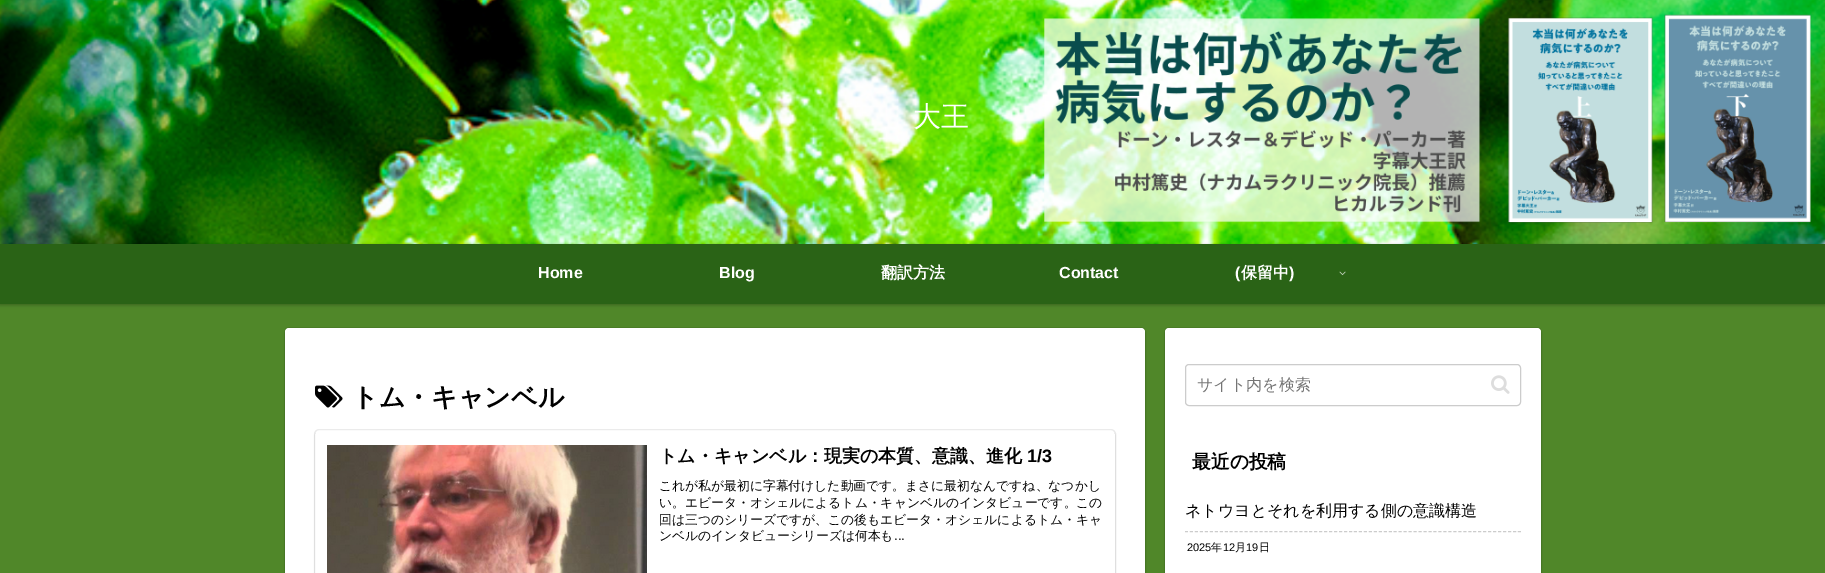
%!PS
<< /PageSize [1825 573] /PageUsesTransparency true >> setpagedevice
/alpha { dup .setfillconstantalpha .setstrokeconstantalpha } def
/roundrect { 5 dict begin { /r /h /w /y /x } { exch def } forall
  x r add y moveto x w add y 2 copy h add r arct x w add y h add x 1 index r arct
  x y h add x y r arct x y 2 copy exch w add exch r arct closepath end } def
/shadow { 12 dict begin { /a /b /q /h /w /y /x } { exch def } forall gsave /was 0 def
  9 -2 -9 { dup b mul 4 div /e exch def 1 sub .425 mul 2.718 exch exp 1 add a .99 .min exch div /now exch def
    1 1 now sub 1 was sub div sub alpha /was now def
    w h .min e 2 mul add 0 gt { x e sub y e sub w e 2 mul add h e 2 mul add
      q e add b .6 mul add w h .min 2 div e add .min 0 .max roundrect fill } if } for grestore end } def
/picture { 5 dict begin { /h /w /y /x /name } { exch def } forall
  gsave x y translate w h scale
  w h 8 [w 0 0 h 0 0] name (r) file false 3 colorimage grestore end } def
0 .pushpdf14devicefilter
0 573 translate 1 -1 scale
4 setmiterlimit
0.314 0.529 0.161 setrgbcolor
0 0 1825 573 rectfill
(img1.rgb) 0 0 1825 244 picture
/WenQuanYiZenHei-Medium [28 0 0 -28 0 0] selectfont
1 setgray
913 126 moveto (大王) show
0 setgray
0 245 1825 60 0 1.5 0.25 shadow
0.165 0.388 0.086 setrgbcolor
0 244 1825 60 rectfill
/LiberationSans-Bold [16 0 0 -16 0 0] selectfont
1 setgray
538 278 moveto (Home) show
719 278 moveto (Blog) show
/WenQuanYiZenHei-Bold [16 0 0 -16 0 0] selectfont
881 278 moveto (翻訳方法) show
/LiberationSans-Bold [16 0 0 -16 0 0] selectfont
1059 278 moveto (Contact) show
1235 278 moveto (\() show
/WenQuanYiZenHei-Bold [16 0 0 -16 0 0] selectfont
1241 278 moveto (保留中) show
/LiberationSans-Bold [16 0 0 -16 0 0] selectfont
1289 278 moveto (\)) show
(img2.rgb) 1339 271 7 5 picture
0.29 0.486 0.149 setrgbcolor
284.5 327.5 861 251 4.5 roundrect stroke
0 setgray
285 330 860 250 4 1 0.16 shadow
1 setgray
285 328 860 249 4 roundrect fill
(img3.rgb) 315 385 28 23 picture
/WenQuanYiZenHei-Bold [26 0 0 -26 0 0] selectfont
0 setgray
352 406 moveto (トム・キャンベル) show
0.922 setgray
314.5 429.5 801 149 4.5 roundrect stroke
gsave
newpath 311 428 moveto 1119 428 lineto 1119 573 lineto 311 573 lineto closepath 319 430 moveto 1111 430 lineto 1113 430 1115 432 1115 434 curveto 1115 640 lineto 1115 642 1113 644 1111 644 curveto 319 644 lineto 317 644 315 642 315 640 curveto 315 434 lineto 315 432 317 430 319 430 curveto closepath eoclip newpath
0 setgray
315 432 800 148 4 1 0.16 shadow
grestore
(img4.rgb) 327 445 320 128 picture
/WenQuanYiZenHei-Bold [18 0 0 -18 0 0] selectfont
0 setgray
659 462 moveto (トム・キャンベル：現実の本質、意識、進化) show
/LiberationSans-Bold [18 0 0 -18 0 0] selectfont
1027 462 moveto (1/3) show
/WenQuanYiZenHei-Medium [12.8 0 0 -12.8 0 0] selectfont
659 490 moveto (これが私が最初に字幕付けした動画です。まさに最初なんですね、なつかし) show
659 507 moveto (い。エビータ・オシェルによるトム・キャンベルのインタビューです。この) show
659 524 moveto (回は三つのシリーズですが、この後もエビータ・オシェルによるトム・キャ) show
659 540 moveto (ンベルのインタビューシリーズは何本も) show
/LiberationSans-Regular [12.8 0 0 -12.8 0 0] selectfont
894 540 moveto (...) show
0.29 0.486 0.149 setrgbcolor
1164.5 327.5 377 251 4.5 roundrect stroke
0 setgray
1165 330 376 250 4 1 0.16 shadow
1 setgray
1165 328 376 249 4 roundrect fill
0.8 setgray
1185.5 364.5 335 41 3.5 roundrect stroke
/WenQuanYiZenHei-Medium [16 0 0 -16 0 0] selectfont
0.459 setgray
1197 390 moveto (サイト内を検索) show
(img5.rgb) 1491 375 19 19 picture
/WenQuanYiZenHei-Bold [18.75 0 0 -18.75 0 0] selectfont
0 setgray
1192 468 moveto (最近の投稿) show
0.8 setgray
[3 1.97] 0 setdash
newpath 1185 531.5 moveto 1521 531.5 lineto stroke
/WenQuanYiZenHei-Medium [16 0 0 -16 0 0] selectfont
0 setgray
1185 516 moveto (ネトウヨとそれを利用する側の意識構造) show
/LiberationSans-Regular [11 0 0 -11 0 0] selectfont
1187 551 moveto (2025) show
/WenQuanYiZenHei-Medium [11 0 0 -11 0 0] selectfont
1211 551 moveto (年) show
/LiberationSans-Regular [11 0 0 -11 0 0] selectfont
1223 551 moveto (12) show
/WenQuanYiZenHei-Medium [11 0 0 -11 0 0] selectfont
1235 551 moveto (月) show
/LiberationSans-Regular [11 0 0 -11 0 0] selectfont
1246 551 moveto (19) show
/WenQuanYiZenHei-Medium [11 0 0 -11 0 0] selectfont
1259 551 moveto (日) show
.poppdf14devicefilter showpage
